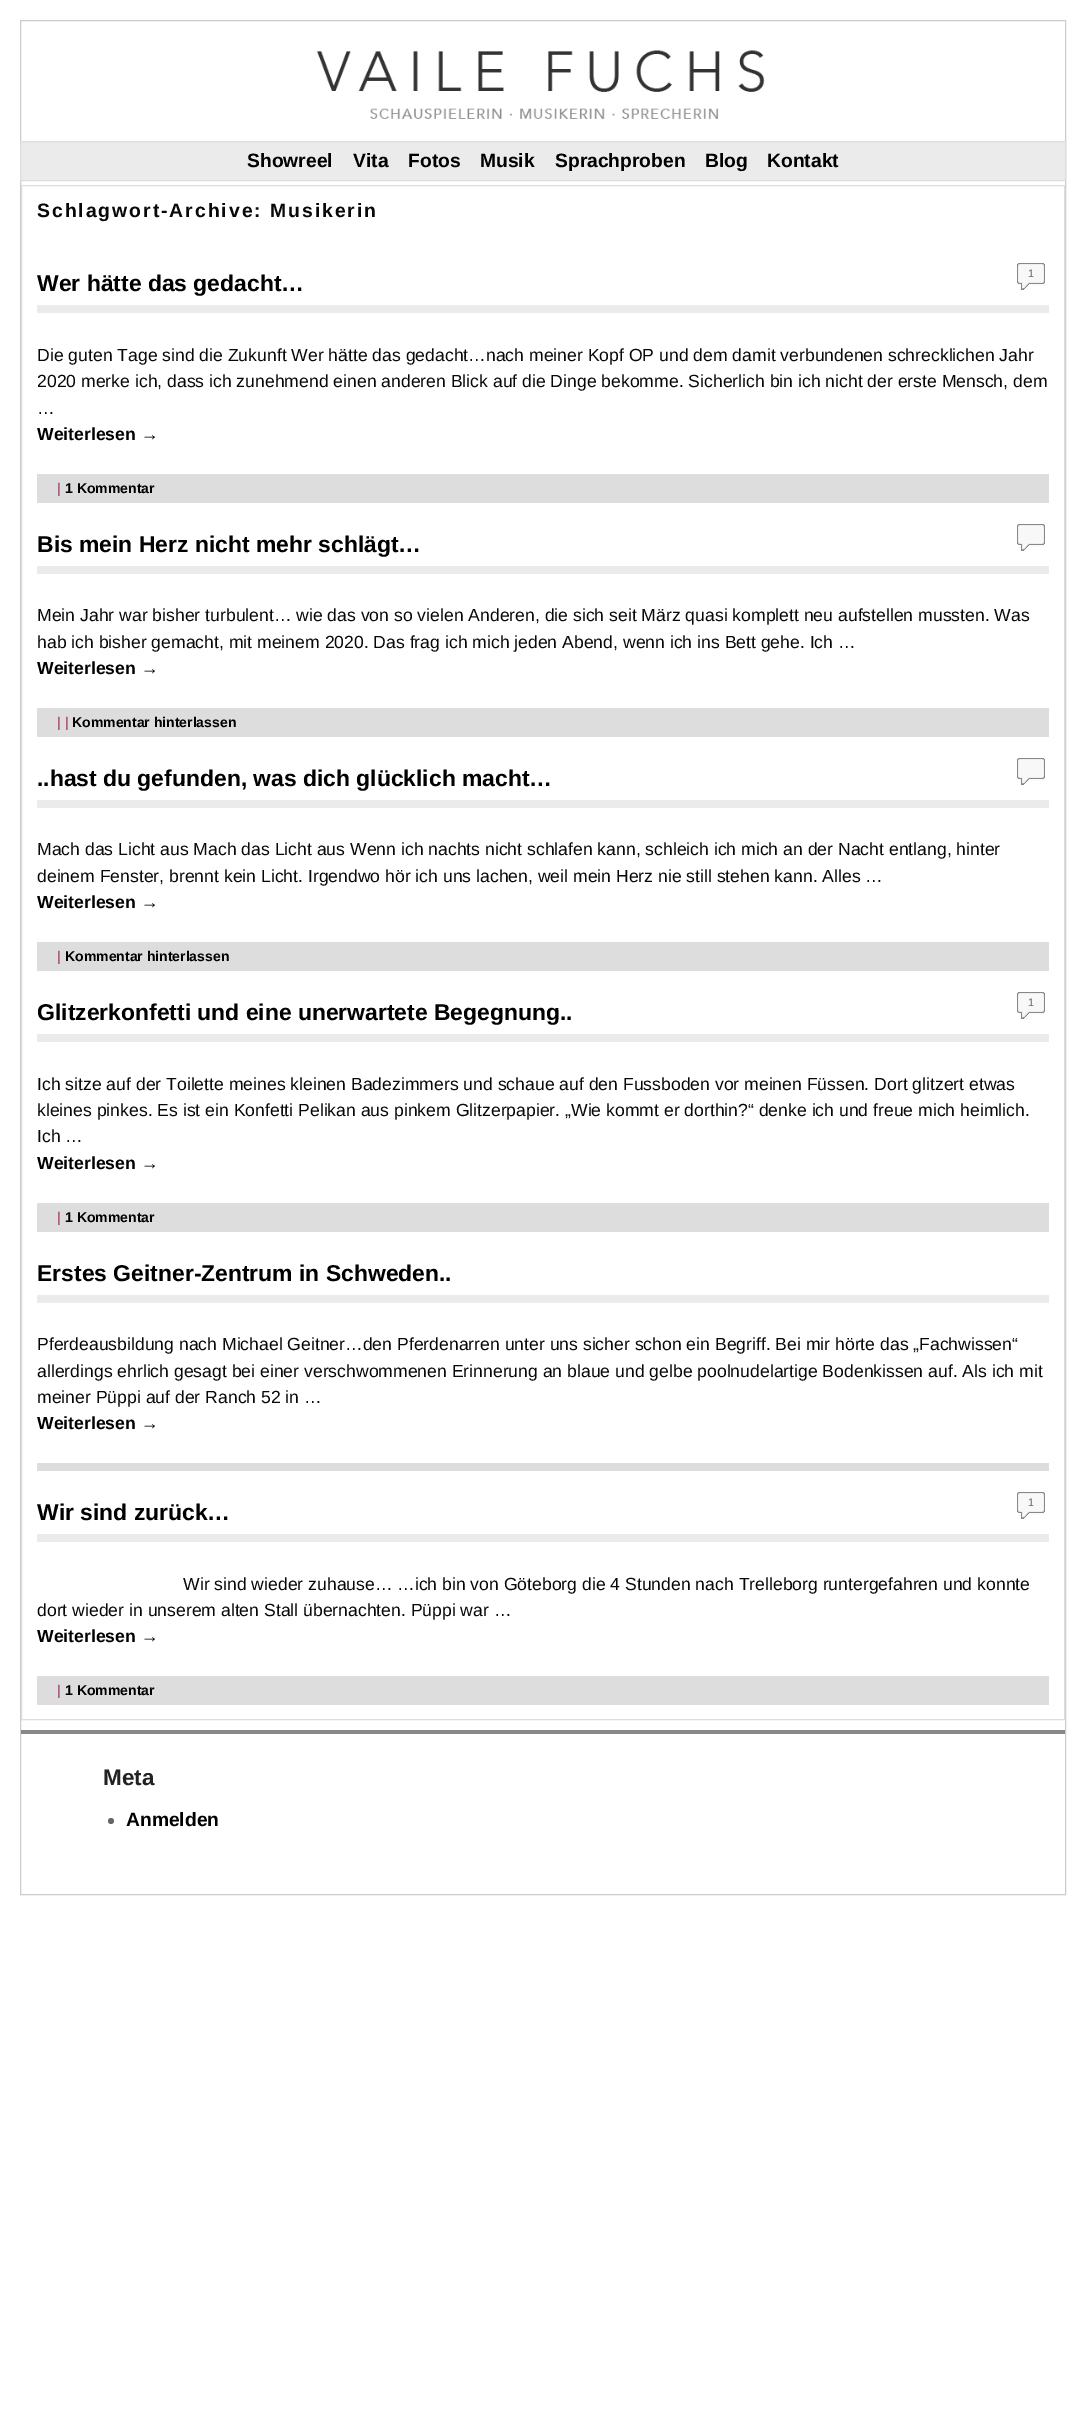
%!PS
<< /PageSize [1086 2409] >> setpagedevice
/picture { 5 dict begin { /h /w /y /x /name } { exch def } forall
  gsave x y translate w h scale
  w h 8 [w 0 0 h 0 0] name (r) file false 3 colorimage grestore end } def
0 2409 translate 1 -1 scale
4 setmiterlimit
1 setgray
0 0 1086 2409 rectfill
0.8 setgray
20.5 20.5 1045 1874 rectstroke
(img1.rgb) 316 50 449 69 picture
0.922 setgray
newpath 20.5 141.5 moveto 1065.5 141.5 lineto 1065.5 180.5 lineto 20.5 180.5 lineto closepath gsave fill grestore
0.867 setgray
stroke
/LiberationSans-Bold [19.25 0 0 -19.25 0 0] selectfont
0 setgray
247 167 moveto (Showreel) show
353 167 moveto (Vita) show
408 167 moveto (Fotos) show
480 167 moveto (Musik) show
555 167 moveto (Sprachproben) show
705 167 moveto (Blog) show
767 167 moveto (Kontakt) show
0.867 setgray
21.5 185.5 1043 1534 rectstroke
/LiberationSans-Bold [19.4 0 0 -19.4 0 0] selectfont
0.031 setgray
37 217 moveto 1.95 0 (Schlagwort-Archive: Musikerin) ashow
(img2.rgb) 1017 263 28 27 picture
/LiberationSans-Regular [11 0 0 -11 0 0] selectfont
0.4 setgray
1028 277 moveto (1) show
/LiberationSans-Bold [22.9 0 0 -22.9 0 0] selectfont
0 setgray
37 291 moveto (Wer hätte das gedacht…) show
0.922 setgray
37 305 1012 8 rectfill
/LiberationSans-Regular [17.6 0 0 -17.6 0 0] selectfont
0.031 setgray
37 361 moveto (Die guten Tage sind die Zukunft Wer hätte das gedacht…nach meiner Kopf OP und dem damit verbundenen schrecklichen Jahr) show
37 387 moveto (2020 merke ich, dass ich zunehmend einen anderen Blick auf die Dinge bekomme. Sicherlich bin ich nicht der erste Mensch, dem) show
37 414 moveto (…) show
/LiberationSans-Bold [17.6 0 0 -17.6 0 0] selectfont
0 setgray
37 440 moveto (Weiterlesen →) show
0.867 setgray
37 474 1012 29 rectfill
/LiberationSans-Regular [14 0 0 -14 0 0] selectfont
0.6 0.2 0.4 setrgbcolor
57 493 moveto (|) show
/LiberationSans-Bold [14 0 0 -14 0 0] selectfont
0 setgray
65 493 moveto (1 Kommentar) show
/LiberationSans-Bold [22.9 0 0 -22.9 0 0] selectfont
37 552 moveto (Bis mein Herz nicht mehr schlägt…) show
(img2.rgb) 1017 524 28 27 picture
0.922 setgray
37 566 1012 8 rectfill
/LiberationSans-Regular [17.6 0 0 -17.6 0 0] selectfont
0.031 setgray
37 621 moveto (Mein Jahr war bisher turbulent… wie das von so vielen Anderen, die sich seit März quasi komplett neu aufstellen mussten. Was) show
37 648 moveto (hab ich bisher gemacht, mit meinem 2020. Das frag ich mich jeden Abend, wenn ich ins Bett gehe. Ich …) show
/LiberationSans-Bold [17.6 0 0 -17.6 0 0] selectfont
0 setgray
37 674 moveto (Weiterlesen →) show
0.867 setgray
37 708 1012 29 rectfill
/LiberationSans-Regular [14 0 0 -14 0 0] selectfont
0.6 0.2 0.4 setrgbcolor
57 727 moveto (| |) show
/LiberationSans-Bold [14 0 0 -14 0 0] selectfont
0 setgray
72 727 moveto (Kommentar hinterlassen) show
/LiberationSans-Bold [22.9 0 0 -22.9 0 0] selectfont
37 786 moveto (..hast du gefunden, was dich glücklich macht…) show
(img2.rgb) 1017 758 28 27 picture
0.922 setgray
37 800 1012 8 rectfill
/LiberationSans-Regular [17.6 0 0 -17.6 0 0] selectfont
0.031 setgray
37 855 moveto (Mach das Licht aus Mach das Licht aus Wenn ich nachts nicht schlafen kann, schleich ich mich an der Nacht entlang, hinter) show
37 882 moveto (deinem Fenster, brennt kein Licht. Irgendwo hör ich uns lachen, weil mein Herz nie still stehen kann. Alles …) show
/LiberationSans-Bold [17.6 0 0 -17.6 0 0] selectfont
0 setgray
37 908 moveto (Weiterlesen →) show
0.867 setgray
37 942 1012 29 rectfill
/LiberationSans-Regular [14 0 0 -14 0 0] selectfont
0.6 0.2 0.4 setrgbcolor
57 961 moveto (|) show
/LiberationSans-Bold [14 0 0 -14 0 0] selectfont
0 setgray
65 961 moveto (Kommentar hinterlassen) show
(img2.rgb) 1017 992 28 27 picture
/LiberationSans-Regular [11 0 0 -11 0 0] selectfont
0.4 setgray
1028 1006 moveto (1) show
/LiberationSans-Bold [22.9 0 0 -22.9 0 0] selectfont
0 setgray
37 1020 moveto (Glitzerkonfetti und eine unerwartete Begegnung..) show
0.922 setgray
37 1034 1012 8 rectfill
/LiberationSans-Regular [17.6 0 0 -17.6 0 0] selectfont
0.031 setgray
37 1090 moveto (Ich sitze auf der Toilette meines kleinen Badezimmers und schaue auf den Fussboden vor meinen Füssen. Dort glitzert etwas) show
37 1116 moveto (kleines pinkes. Es ist ein Konfetti Pelikan aus pinkem Glitzerpapier. „Wie kommt er dorthin?“ denke ich und freue mich heimlich.) show
37 1142 moveto (Ich …) show
/LiberationSans-Bold [17.6 0 0 -17.6 0 0] selectfont
0 setgray
37 1169 moveto (Weiterlesen →) show
0.867 setgray
37 1203 1012 29 rectfill
/LiberationSans-Regular [14 0 0 -14 0 0] selectfont
0.6 0.2 0.4 setrgbcolor
57 1222 moveto (|) show
/LiberationSans-Bold [14 0 0 -14 0 0] selectfont
0 setgray
65 1222 moveto (1 Kommentar) show
/LiberationSans-Bold [22.9 0 0 -22.9 0 0] selectfont
37 1281 moveto (Erstes Geitner-Zentrum in Schweden..) show
0.922 setgray
37 1295 1012 8 rectfill
/LiberationSans-Regular [17.6 0 0 -17.6 0 0] selectfont
0.031 setgray
37 1350 moveto (Pferdeausbildung nach Michael Geitner…den Pferdenarren unter uns sicher schon ein Begriff. Bei mir hörte das „Fachwissen“) show
37 1377 moveto (allerdings ehrlich gesagt bei einer verschwommenen Erinnerung an blaue und gelbe poolnudelartige Bodenkissen auf. Als ich mit) show
37 1403 moveto (meiner Püppi auf der Ranch 52 in …) show
/LiberationSans-Bold [17.6 0 0 -17.6 0 0] selectfont
0 setgray
37 1429 moveto (Weiterlesen →) show
0.867 setgray
37 1463 1012 8 rectfill
(img2.rgb) 1017 1492 28 27 picture
/LiberationSans-Regular [11 0 0 -11 0 0] selectfont
0.4 setgray
1028 1506 moveto (1) show
/LiberationSans-Bold [22.9 0 0 -22.9 0 0] selectfont
0 setgray
37 1520 moveto (Wir sind zurück…) show
0.922 setgray
37 1534 1012 8 rectfill
/LiberationSans-Regular [17.6 0 0 -17.6 0 0] selectfont
0.031 setgray
183 1590 moveto (Wir sind wieder zuhause… …ich bin von Göteborg die 4 Stunden nach Trelleborg runtergefahren und konnte) show
37 1616 moveto (dort wieder in unserem alten Stall übernachten. Püppi war …) show
/LiberationSans-Bold [17.6 0 0 -17.6 0 0] selectfont
0 setgray
37 1642 moveto (Weiterlesen →) show
0.867 setgray
37 1676 1012 29 rectfill
/LiberationSans-Regular [14 0 0 -14 0 0] selectfont
0.6 0.2 0.4 setrgbcolor
57 1695 moveto (|) show
/LiberationSans-Bold [14 0 0 -14 0 0] selectfont
0 setgray
65 1695 moveto (1 Kommentar) show
0.533 setgray
21 1730 1044 4 rectfill
/LiberationSans-Bold [22.5 0 0 -22.5 0 0] selectfont
0.133 setgray
103 1785 moveto (Meta) show
0.4 setgray
newpath 111 1821 3 0 360 arc closepath fill
/LiberationSans-Bold [19.25 0 0 -19.25 0 0] selectfont
0 setgray
126 1826 moveto (Anmelden) show
showpage
